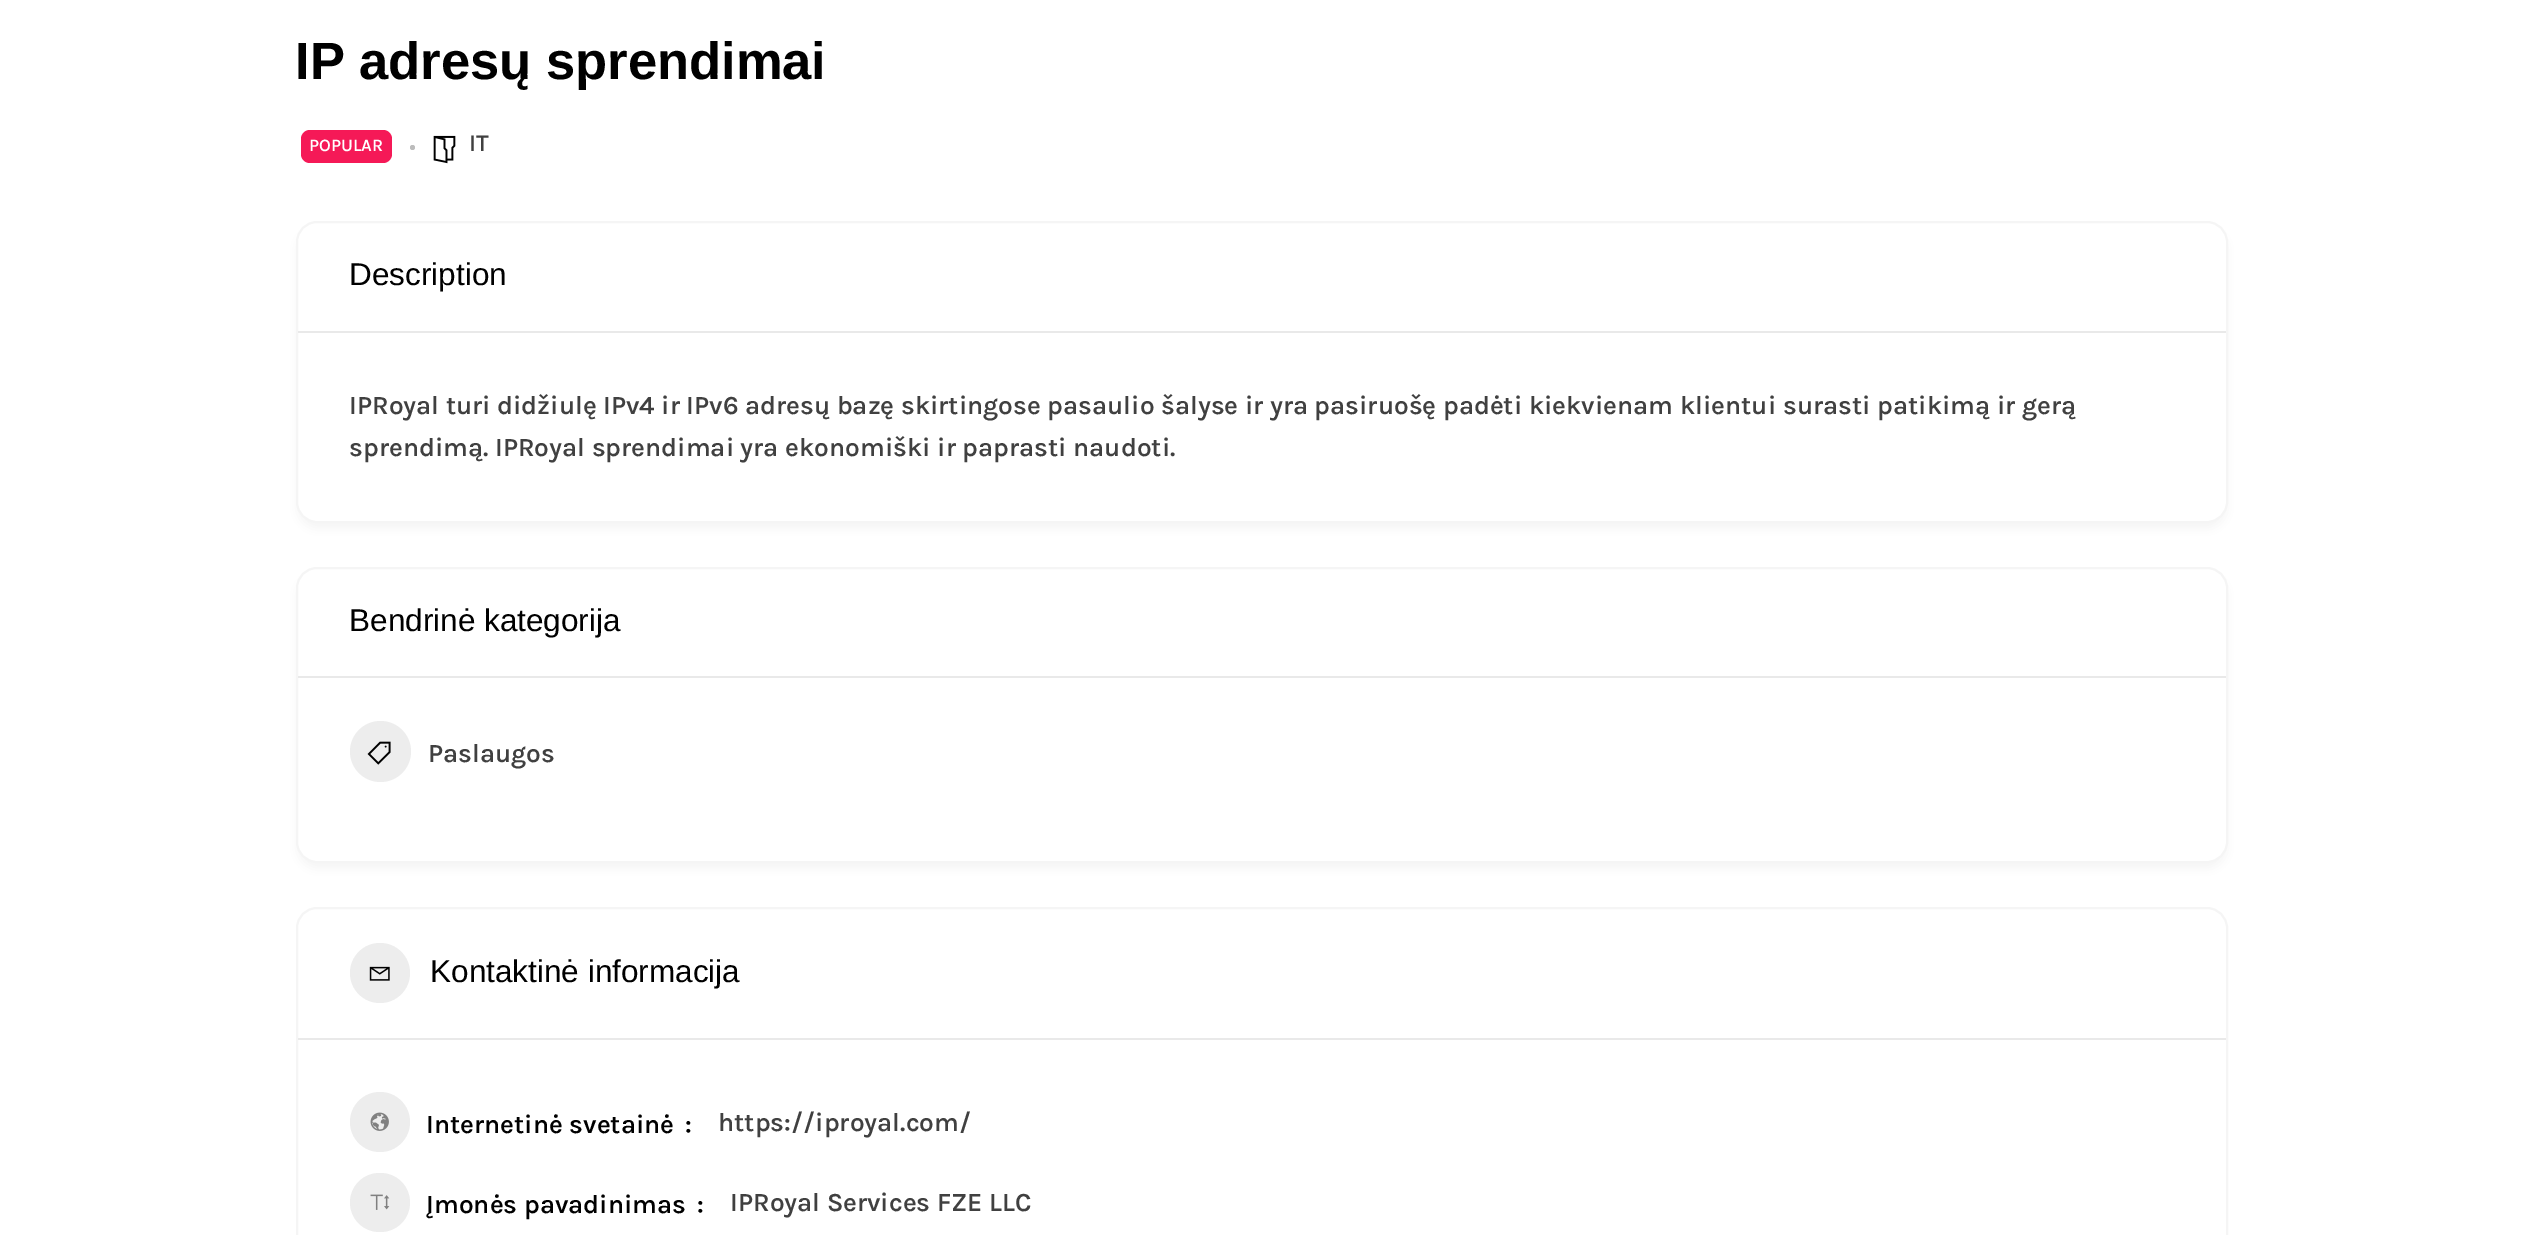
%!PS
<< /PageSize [2521 1235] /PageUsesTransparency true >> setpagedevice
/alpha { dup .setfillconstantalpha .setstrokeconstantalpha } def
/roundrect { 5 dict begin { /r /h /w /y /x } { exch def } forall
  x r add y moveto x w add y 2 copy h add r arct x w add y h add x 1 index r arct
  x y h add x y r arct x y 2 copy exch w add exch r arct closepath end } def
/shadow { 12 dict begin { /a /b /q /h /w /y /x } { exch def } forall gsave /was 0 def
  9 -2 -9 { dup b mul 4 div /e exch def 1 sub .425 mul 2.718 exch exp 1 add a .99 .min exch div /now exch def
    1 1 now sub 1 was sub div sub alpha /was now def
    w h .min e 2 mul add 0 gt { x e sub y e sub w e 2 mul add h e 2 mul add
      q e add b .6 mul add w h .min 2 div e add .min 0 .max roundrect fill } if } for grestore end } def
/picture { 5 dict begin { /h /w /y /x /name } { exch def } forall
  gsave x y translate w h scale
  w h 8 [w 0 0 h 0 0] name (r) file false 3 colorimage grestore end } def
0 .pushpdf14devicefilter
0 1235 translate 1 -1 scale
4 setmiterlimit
1 setgray
0 0 2521 1235 rectfill
/LiberationSans-Bold [52.5 0 0 -52.5 0 0] selectfont
0 setgray
295 79 moveto (IP adresų sprendimai) show
0.961 0.098 0.341 setrgbcolor
301 130 91 33 9 roundrect fill
/Karla-SemiBold [17.5 0 0 -17.5 0 0] selectfont
1 setgray
309 151 moveto (POPULAR) show
0.737 setgray
newpath 412.5 147.5 2.5 0 360 arc closepath fill
(img1.rgb) 433 135 23 29 picture
/Karla-SemiBold [24 0 0 -24 0 0] selectfont
0.251 setgray
469 151 moveto (IT) show
0 setgray
296 228 1932 302 21 5 0.04 shadow
1 setgray
297 222 1930 300 20 roundrect gsave fill grestore
0.961 setgray
2 setlinewidth
stroke
0.914 setgray
298 331 1928 2 rectfill
/LiberationSans-Regular [31.5 0 0 -31.5 0 0] selectfont
0 setgray
349 285 moveto (Description) show
/Karla-SemiBold [26.25 0 0 -26.25 0 0] selectfont
0.251 setgray
349 414 moveto (IPRoyal turi didžiulę IPv4 ir IPv6 adresų bazę skirtingose pasaulio šalyse ir yra pasiruošę padėti kiekvienam klientui surasti patikimą ir gerą) show
349 456 moveto (sprendimą. IPRoyal sprendimai yra ekonomiški ir paprasti naudoti.) show
0 setgray
296 574 1932 296 21 5 0.04 shadow
1 setgray
297 568 1930 294 20 roundrect gsave fill grestore
0.961 setgray
stroke
0.914 setgray
298 676 1928 2 rectfill
/LiberationSans-Regular [31.5 0 0 -31.5 0 0] selectfont
0 setgray
349 631 moveto (Bendrinė kategorija) show
0.929 setgray
newpath 380.5 751.5 30.5 0 360 arc closepath fill
(img2.rgb) 367 741 24 24 picture
/Karla-SemiBold [26.25 0 0 -26.25 0 0] selectfont
0.251 setgray
428 762 moveto (Paslaugos) show
0.961 setgray
297 908 1930 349 20 roundrect stroke
0.914 setgray
298 1038 1928 2 rectfill
0.929 setgray
newpath 380 973 30 0 360 arc closepath fill
(img3.rgb) 369 966 21 15 picture
/LiberationSans-Regular [31.5 0 0 -31.5 0 0] selectfont
0 setgray
430 982 moveto (Kontaktinė informacija) show
0.929 setgray
newpath 380 1122 30 0 360 arc closepath fill
(img4.rgb) 370 1112 19 19 picture
/Karla-SemiBold [26.25 0 0 -26.25 0 0] selectfont
0 setgray
426 1133 moveto (Internetinė svetainė) show
685 1133 moveto (:) show
0.251 setgray
718 1131 moveto (https://iproyal.com/) show
0.929 setgray
350 1173 60 59 29.5 roundrect fill
(img5.rgb) 370 1194 20 16 picture
0 setgray
426 1213 moveto (Įmonės pavadinimas) show
697 1213 moveto (:) show
0.251 setgray
730 1211 moveto (IPRoyal Services FZE LLC) show
.poppdf14devicefilter showpage
